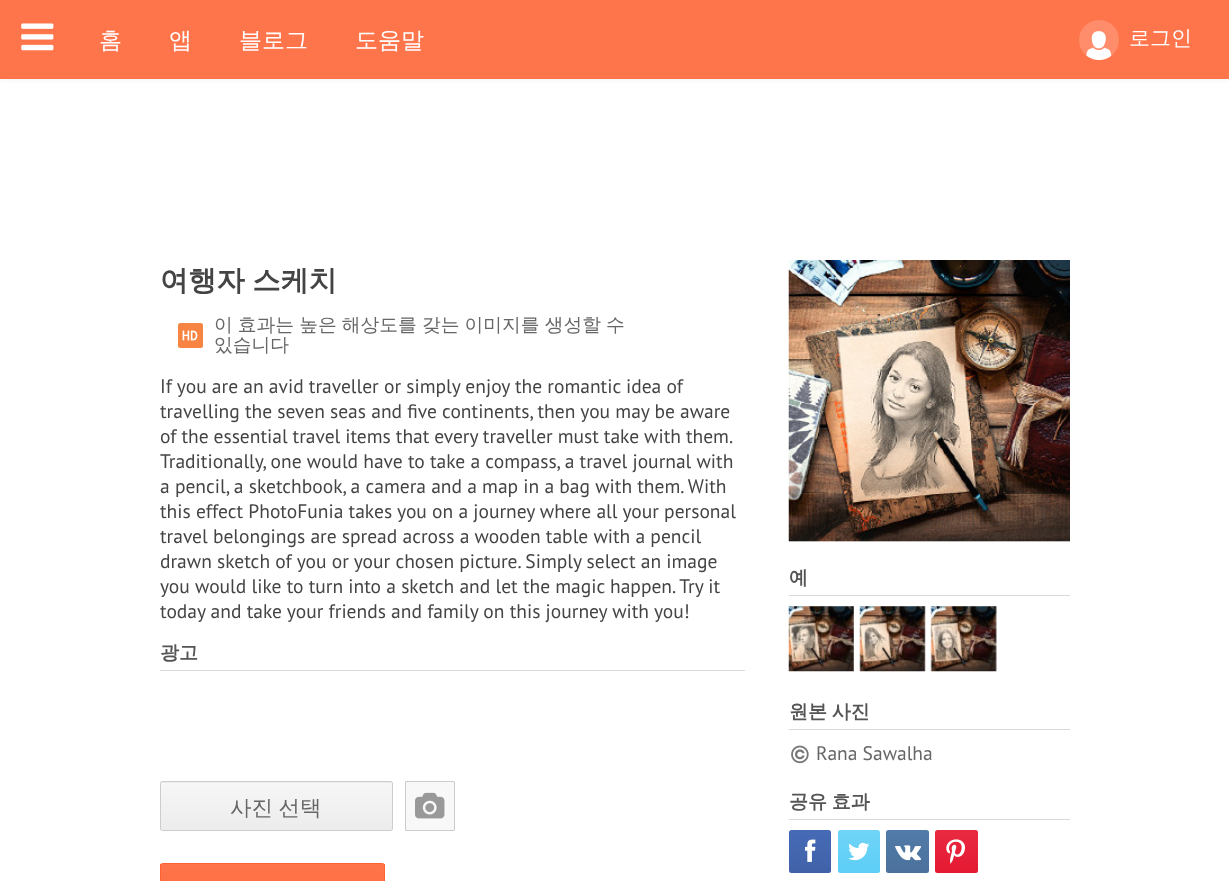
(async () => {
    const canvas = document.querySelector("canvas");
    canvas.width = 1229;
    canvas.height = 881;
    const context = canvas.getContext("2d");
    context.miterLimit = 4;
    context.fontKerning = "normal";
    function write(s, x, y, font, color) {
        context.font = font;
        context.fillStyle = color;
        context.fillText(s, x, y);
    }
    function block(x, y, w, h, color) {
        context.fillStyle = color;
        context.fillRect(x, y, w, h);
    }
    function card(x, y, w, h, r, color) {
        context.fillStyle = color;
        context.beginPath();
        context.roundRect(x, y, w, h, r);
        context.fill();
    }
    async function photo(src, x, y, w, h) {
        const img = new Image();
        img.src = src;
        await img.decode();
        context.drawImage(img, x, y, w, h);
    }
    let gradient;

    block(0, 0, 1229, 881, "rgb(255, 255, 255)");
    context.fillStyle = "rgba(0, 0, 0, 0.08)";
    context.filter = "blur(2.5px)";
    context.beginPath();
    context.rect(0, 0, 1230, 79);
    context.fill();
    context.filter = "none";
    block(0, 0, 1229, 79, "rgb(255, 117, 75)");
    await photo("media/1.png", 21, 23, 33, 28);
    write("홈", 99, 48, "500 23px WenQuanYi Zen Hei", "rgb(255, 255, 255)");
    write("앱", 169, 48, "500 23px WenQuanYi Zen Hei", "rgb(255, 255, 255)");
    write("블로그", 239, 48, "500 23px WenQuanYi Zen Hei", "rgb(255, 255, 255)");
    write("도움말", 355, 48, "500 23px WenQuanYi Zen Hei", "rgb(255, 255, 255)");
    context.fillStyle = "rgb(255, 140, 106)";
    context.beginPath();
    context.arc(1099, 40, 20, 0, Math.PI * 2);
    context.fill();
    await photo("media/2.png", 1086, 31, 26, 29);
    write("로그인", 1129, 45, "500 21px WenQuanYi Zen Hei", "rgb(255, 255, 255)");
    context.wordSpacing = "-1px";
    write("여행자 스케치", 160, 290, "bold 28.25px WenQuanYi Zen Hei", "rgb(68, 68, 68)");
    card(178, 323, 25, 25, 2.5, "rgb(247, 132, 66)");
    await photo("media/3.png", 182, 330, 16, 11);
    context.wordSpacing = "-0.5px";
    write("이 효과는 높은 해상도를 갖는 이미지를 생성할 수", 214, 331, "500 18.75px WenQuanYi Zen Hei", "rgb(102, 102, 102)");
    context.wordSpacing = "0px";
    write("있습니다", 214, 351, "500 18.75px WenQuanYi Zen Hei", "rgb(102, 102, 102)");
    write("If you are an avid traveller or simply enjoy the romantic idea of", 160, 393, "19.5px PT Sans", "rgb(68, 68, 68)");
    write("travelling the seven seas and five continents, then you may be aware", 160, 418, "19.5px PT Sans", "rgb(68, 68, 68)");
    context.wordSpacing = "-0.25px";
    write("of the essential travel items that every traveller must take with them.", 160, 443, "19.5px PT Sans", "rgb(68, 68, 68)");
    context.wordSpacing = "0px";
    write("Traditionally, one would have to take a compass, a travel journal with", 160, 468, "19.5px PT Sans", "rgb(68, 68, 68)");
    write("a pencil, a sketchbook, a camera and a map in a bag with them. With", 160, 493, "19.5px PT Sans", "rgb(68, 68, 68)");
    write("this effect PhotoFunia takes you on a journey where all your personal", 160, 518, "19.5px PT Sans", "rgb(68, 68, 68)");
    write("travel belongings are spread across a wooden table with a pencil", 160, 543, "19.5px PT Sans", "rgb(68, 68, 68)");
    write("drawn sketch of you or your chosen picture. Simply select an image", 160, 568, "19.5px PT Sans", "rgb(68, 68, 68)");
    write("you would like to turn into a sketch and let the magic happen. Try it", 160, 593, "19.5px PT Sans", "rgb(68, 68, 68)");
    write("today and take your friends and family on this journey with you!", 160, 618, "19.5px PT Sans", "rgb(68, 68, 68)");
    block(160, 670, 585, 1, "rgb(218, 218, 218)");
    write("광고", 160, 659, "bold 19px WenQuanYi Zen Hei", "rgb(85, 85, 85)");
    context.save();
    context.beginPath();
    context.roundRect(160, 781, 233, 50, 2.5);
    context.clip();
    gradient = context.createLinearGradient(161, 783, 161, 735);
    gradient.addColorStop(0, "rgb(236, 236, 236)");
    gradient.addColorStop(1, "rgb(246, 246, 246)");
    context.fillStyle = gradient;
    context.fillRect(160, 781, 233, 2);
    context.restore();
    gradient = context.createLinearGradient(161, 830, 161, 783);
    gradient.addColorStop(0, "rgb(236, 236, 236)");
    gradient.addColorStop(1, "rgb(246, 246, 246)");
    context.fillStyle = gradient;
    context.fillRect(160, 783, 233, 47);
    context.beginPath();
    context.roundRect(160.5, 781.5, 232, 49, 2);
    context.strokeStyle = "rgb(204, 204, 204)";
    context.stroke();
    context.wordSpacing = "-1px";
    write("사진 선택", 230, 815, "500 21.5px WenQuanYi Zen Hei", "rgb(102, 102, 102)");
    context.fillStyle = "rgb(248, 248, 248)";
    context.beginPath();
    context.roundRect(405.5, 781.5, 49, 49, 0.5);
    context.fill();
    context.stroke();
    await photo("media/4.png", 415, 792, 30, 27);
    gradient = context.createLinearGradient(161, 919, 161, 864);
    gradient.addColorStop(0, "rgb(255, 101, 55)");
    gradient.addColorStop(1, "rgb(255, 117, 75)");
    context.fillStyle = gradient;
    context.fillRect(160, 864, 225, 17);
    context.beginPath();
    context.roundRect(160.5, 863.5, 224, 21, 2);
    context.strokeStyle = "rgb(255, 97, 49)";
    context.stroke();
    await photo("media/5.png", 788, 260, 282, 282);
    block(789, 595, 281, 1, "rgb(218, 218, 218)");
    context.wordSpacing = "0px";
    write("예", 789, 584, "bold 19px WenQuanYi Zen Hei", "rgb(85, 85, 85)");
    block(789, 606, 65, 65, "rgb(238, 238, 238)");
    await photo("media/6.png", 788, 606, 66, 66);
    block(860, 606, 65, 65, "rgb(238, 238, 238)");
    await photo("media/7.png", 859, 606, 67, 66);
    block(931, 606, 65, 65, "rgb(238, 238, 238)");
    await photo("media/8.png", 930, 606, 67, 66);
    block(789, 729, 281, 1, "rgb(218, 218, 218)");
    context.wordSpacing = "-1px";
    write("원본 사진", 789, 718, "bold 19px WenQuanYi Zen Hei", "rgb(85, 85, 85)");
    await photo("media/9.png", 791, 745, 18, 19);
    context.wordSpacing = "0px";
    write("Rana Sawalha", 816, 760, "19.5px PT Sans", "rgb(102, 102, 102)");
    block(789, 819, 281, 1, "rgb(218, 218, 218)");
    context.wordSpacing = "-1px";
    write("공유 효과", 789, 808, "bold 19px WenQuanYi Zen Hei", "rgb(85, 85, 85)");
    gradient = context.createLinearGradient(789, 873, 789, 830);
    gradient.addColorStop(0, "rgb(65, 98, 168)");
    gradient.addColorStop(1, "rgb(70, 106, 182)");
    context.fillStyle = gradient;
    context.beginPath();
    context.roundRect(789, 830, 42, 43, 2.5);
    context.fill();
    await photo("media/10.png", 805, 839, 11, 23);
    gradient = context.createLinearGradient(838, 873, 838, 830);
    gradient.addColorStop(0, "rgb(92, 206, 246)");
    gradient.addColorStop(1, "rgb(112, 212, 247)");
    context.fillStyle = gradient;
    context.beginPath();
    context.roundRect(838, 830, 42, 43, 2.5);
    context.fill();
    await photo("media/11.png", 848, 842, 22, 19);
    gradient = context.createLinearGradient(886, 873, 886, 830);
    gradient.addColorStop(0, "rgb(75, 113, 155)");
    gradient.addColorStop(1, "rgb(81, 123, 169)");
    context.fillStyle = gradient;
    context.beginPath();
    context.roundRect(886, 830, 43, 43, 2.5);
    context.fill();
    await photo("media/12.png", 895, 845, 26, 16);
    gradient = context.createLinearGradient(935, 873, 935, 830);
    gradient.addColorStop(0, "rgb(228, 25, 50)");
    gradient.addColorStop(1, "rgb(232, 42, 65)");
    context.fillStyle = gradient;
    context.beginPath();
    context.roundRect(935, 830, 43, 43, 2.5);
    context.fill();
    await photo("media/13.png", 946, 839, 19, 25);
})();
